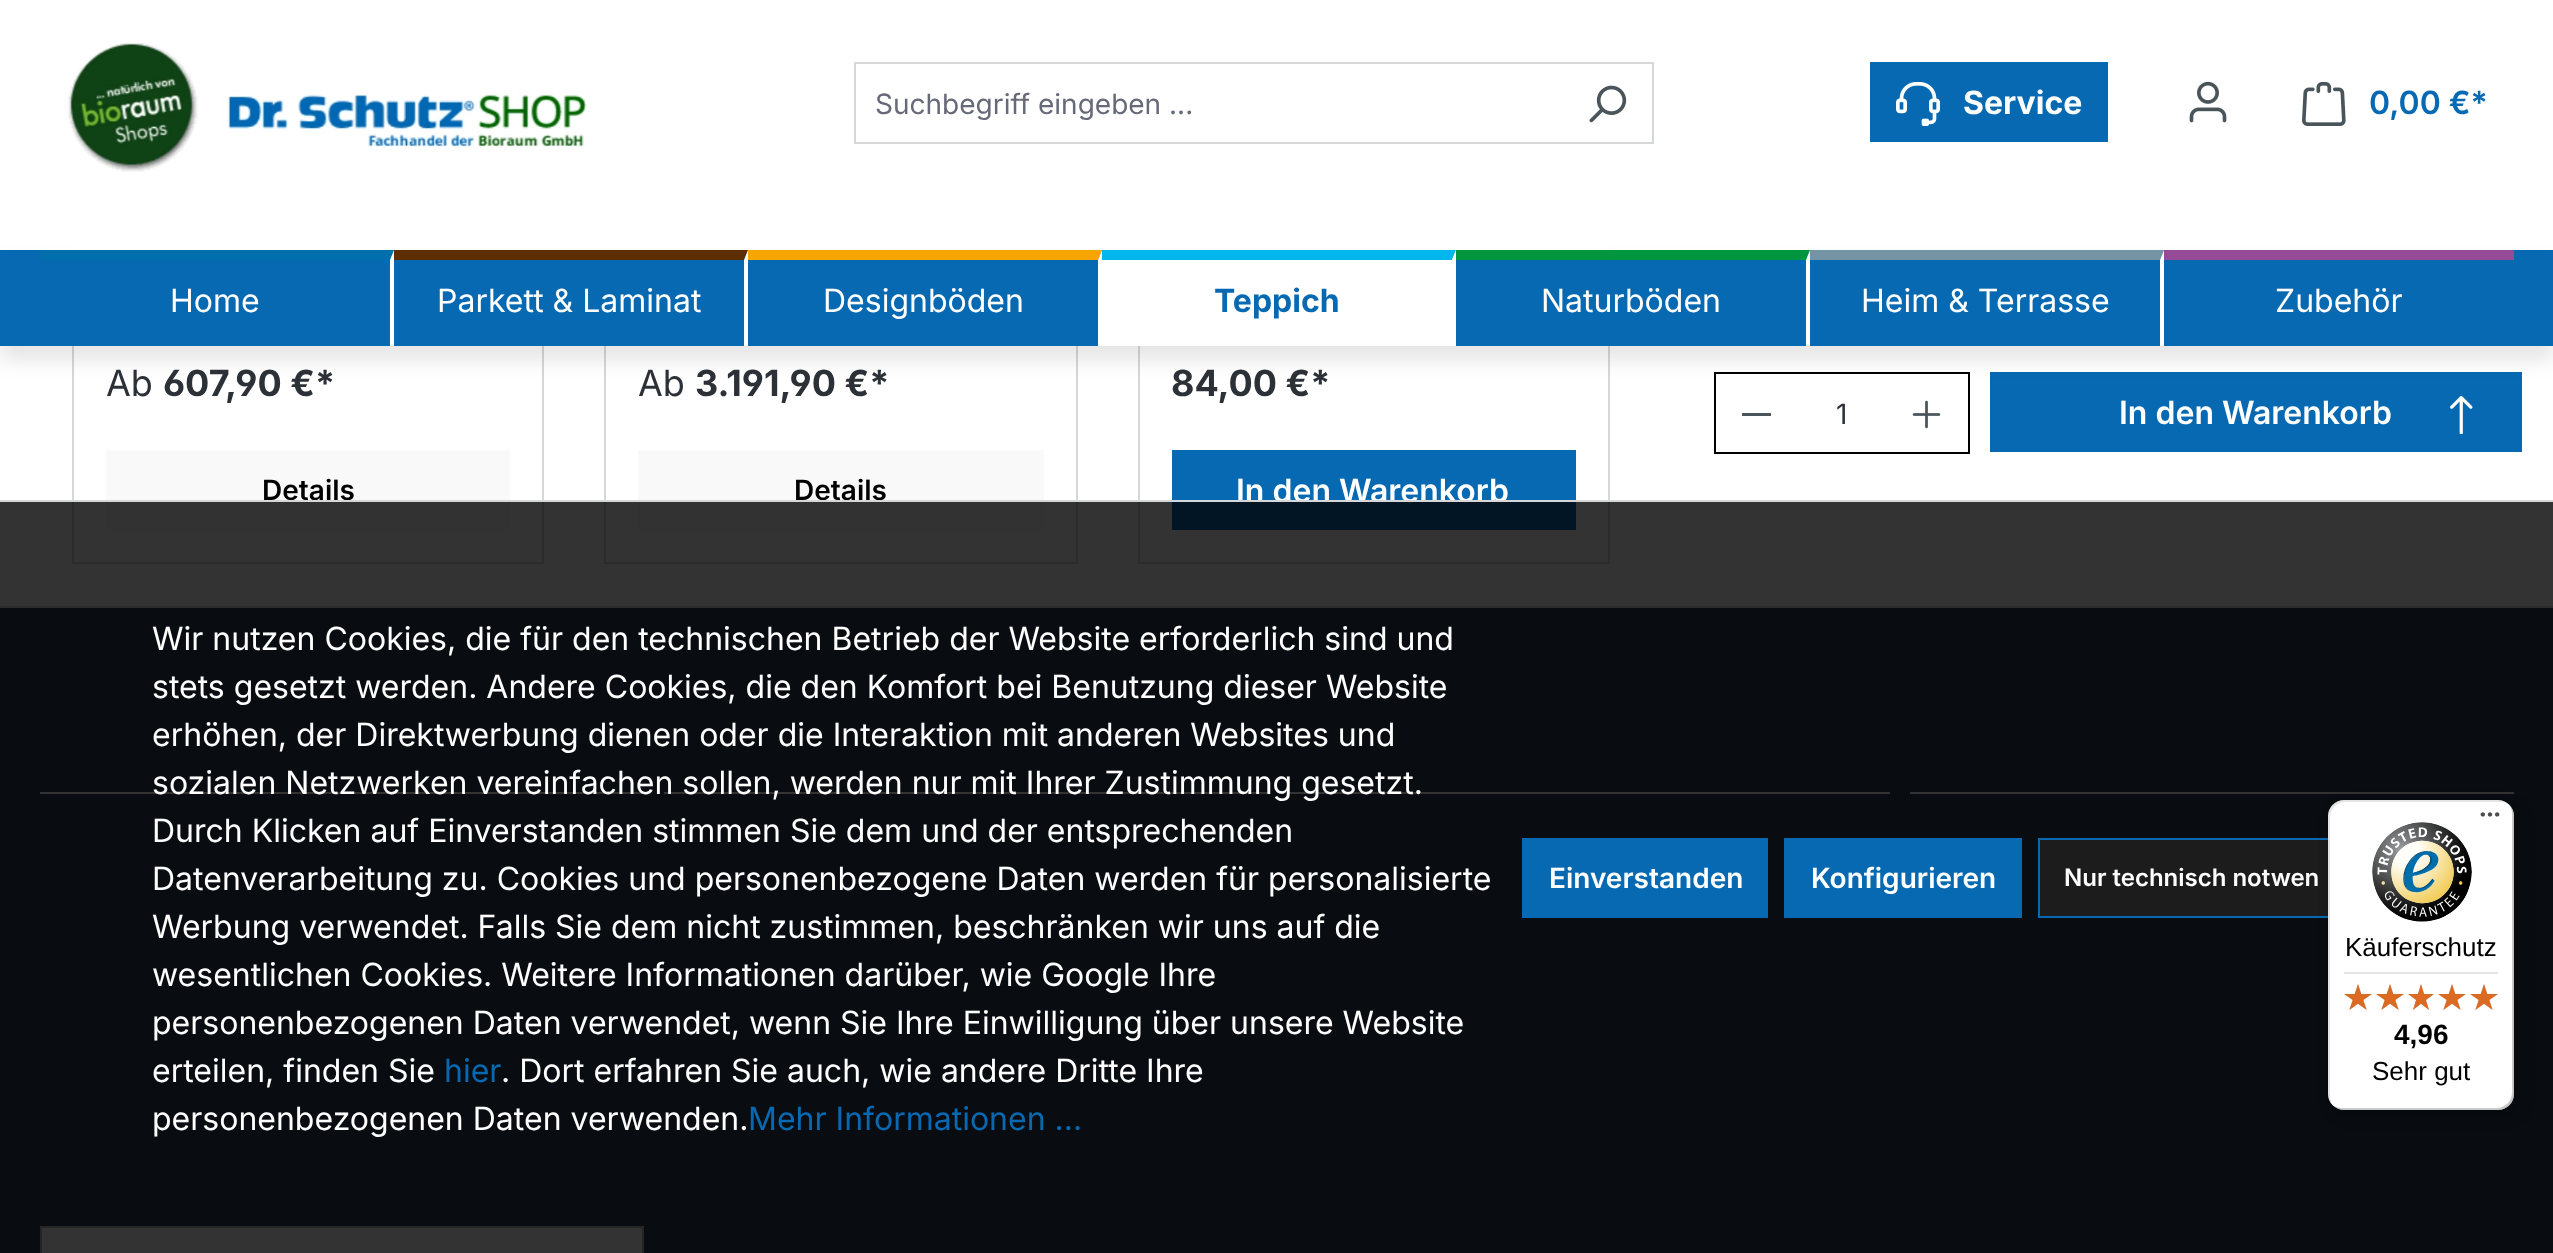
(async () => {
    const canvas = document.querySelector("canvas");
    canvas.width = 2553;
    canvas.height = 1253;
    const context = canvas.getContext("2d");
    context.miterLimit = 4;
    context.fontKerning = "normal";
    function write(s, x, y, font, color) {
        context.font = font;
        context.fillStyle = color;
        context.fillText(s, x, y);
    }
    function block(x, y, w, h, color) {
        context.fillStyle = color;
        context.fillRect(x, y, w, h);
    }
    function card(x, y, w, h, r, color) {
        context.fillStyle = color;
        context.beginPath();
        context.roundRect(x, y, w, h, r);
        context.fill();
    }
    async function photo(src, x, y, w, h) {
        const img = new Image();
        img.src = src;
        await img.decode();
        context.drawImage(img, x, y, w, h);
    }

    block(0, 0, 2553, 1253, "rgb(255, 255, 255)");
    context.strokeStyle = "rgb(213, 215, 217)";
    context.lineWidth = 2;
    context.strokeRect(73, -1, 470, 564);
    context.strokeRect(605, -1, 472, 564);
    context.strokeRect(1139, -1, 470, 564);
    context.strokeStyle = "rgb(0, 0, 0)";
    context.strokeRect(1715, 373, 254, 80);
    block(1990, 372, 532, 80, "rgb(7, 105, 178)");
    context.fillStyle = "rgba(0, 0, 0, 0.1)";
    context.filter = "blur(10px)";
    context.beginPath();
    context.rect(0, 264, 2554, 96);
    context.fill();
    context.filter = "none";
    block(72, 0, 1538, 250, "rgb(255, 255, 255)");
    await photo("media/1.png", 68, 42, 519, 130);
    block(854, 62, 800, 2, "rgb(213, 215, 217)");
    block(854, 142, 708, 2, "rgb(213, 215, 217)");
    block(854, 62, 2, 82, "rgb(213, 215, 217)");
    write("Suchbegriff eingeben ...", 875, 114, "28px Inter", "rgb(102, 105, 119)");
    block(1652, 62, 2, 82, "rgb(213, 215, 217)");
    block(1560, 142, 94, 2, "rgb(213, 215, 217)");
    await photo("media/2.png", 1589, 85, 38, 38);
    block(1870, 62, 238, 80, "rgb(7, 105, 178)");
    await photo("media/3.png", 1896, 82, 44, 44);
    write("Service", 1963, 114, "bold 32px Inter", "rgb(255, 255, 255)");
    await photo("media/4.png", 2189, 81, 38, 42);
    await photo("media/5.png", 2302, 82, 44, 44);
    write("0,00 €*", 2369, 114, "600 32px Inter", "rgb(7, 105, 178)");
    block(0, 250, 2553, 96, "rgb(7, 105, 178)");
    context.fillStyle = "rgb(0, 111, 172)";
    context.beginPath();
    context.moveTo(40, 250);
    context.lineTo(394, 250);
    context.lineTo(390, 260);
    context.lineTo(40, 260);
    context.closePath();
    context.fill();
    context.fillStyle = "rgb(255, 255, 255)";
    context.beginPath();
    context.moveTo(394, 250);
    context.lineTo(394, 346);
    context.lineTo(390, 346);
    context.lineTo(390, 260);
    context.closePath();
    context.fill();
    write("Home", 170, 312, "32px Inter", "rgb(255, 255, 255)");
    context.fillStyle = "rgb(93, 46, 0)";
    context.beginPath();
    context.moveTo(394, 250);
    context.lineTo(748, 250);
    context.lineTo(744, 260);
    context.lineTo(394, 260);
    context.closePath();
    context.fill();
    context.fillStyle = "rgb(255, 255, 255)";
    context.beginPath();
    context.moveTo(748, 250);
    context.lineTo(748, 346);
    context.lineTo(744, 346);
    context.lineTo(744, 260);
    context.closePath();
    context.fill();
    write("Parkett & Laminat", 437, 312, "32px Inter", "rgb(255, 255, 255)");
    context.fillStyle = "rgb(247, 165, 0)";
    context.beginPath();
    context.moveTo(748, 250);
    context.lineTo(1102, 250);
    context.lineTo(1098, 260);
    context.lineTo(748, 260);
    context.closePath();
    context.fill();
    context.fillStyle = "rgb(255, 255, 255)";
    context.beginPath();
    context.moveTo(1102, 250);
    context.lineTo(1102, 346);
    context.lineTo(1098, 346);
    context.lineTo(1098, 260);
    context.closePath();
    context.fill();
    write("Designböden", 823, 312, "32px Inter", "rgb(255, 255, 255)");
    block(1102, 250, 354, 96, "rgb(255, 255, 255)");
    context.fillStyle = "rgb(0, 182, 237)";
    context.beginPath();
    context.moveTo(1102, 250);
    context.lineTo(1456, 250);
    context.lineTo(1452, 260);
    context.lineTo(1102, 260);
    context.closePath();
    context.fill();
    context.fillStyle = "rgb(255, 255, 255)";
    context.beginPath();
    context.moveTo(1456, 250);
    context.lineTo(1456, 346);
    context.lineTo(1452, 346);
    context.lineTo(1452, 260);
    context.closePath();
    context.fill();
    write("Teppich", 1214, 312, "bold 32px Inter", "rgb(7, 105, 178)");
    context.fillStyle = "rgb(0, 150, 64)";
    context.beginPath();
    context.moveTo(1456, 250);
    context.lineTo(1810, 250);
    context.lineTo(1806, 260);
    context.lineTo(1456, 260);
    context.closePath();
    context.fill();
    context.fillStyle = "rgb(255, 255, 255)";
    context.beginPath();
    context.moveTo(1810, 250);
    context.lineTo(1810, 346);
    context.lineTo(1806, 346);
    context.lineTo(1806, 260);
    context.closePath();
    context.fill();
    write("Naturböden", 1541, 312, "32px Inter", "rgb(255, 255, 255)");
    context.fillStyle = "rgb(116, 147, 163)";
    context.beginPath();
    context.moveTo(1810, 250);
    context.lineTo(2164, 250);
    context.lineTo(2160, 260);
    context.lineTo(1810, 260);
    context.closePath();
    context.fill();
    context.fillStyle = "rgb(255, 255, 255)";
    context.beginPath();
    context.moveTo(2164, 250);
    context.lineTo(2164, 346);
    context.lineTo(2160, 346);
    context.lineTo(2160, 260);
    context.closePath();
    context.fill();
    write("Heim & Terrasse", 1861, 312, "32px Inter", "rgb(255, 255, 255)");
    block(2164, 250, 350, 10, "rgb(149, 75, 151)");
    write("Zubehör", 2275, 312, "32px Inter", "rgb(255, 255, 255)");
    write("Ab", 106, 396, "36px Inter", "rgb(43, 49, 54)");
    write("607,90 €*", 163, 396, "bold 36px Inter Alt", "rgb(43, 49, 54)");
    block(106, 450, 404, 80, "rgb(249, 249, 249)");
    write("Details", 262, 500, "600 28px Inter", "rgb(0, 0, 0)");
    write("Ab", 638, 396, "36px Inter", "rgb(43, 49, 54)");
    write("3.191,90 €*", 695, 396, "bold 36px Inter Alt", "rgb(43, 49, 54)");
    block(638, 450, 406, 80, "rgb(249, 249, 249)");
    write("Details", 794, 500, "600 28px Inter", "rgb(0, 0, 0)");
    write("84,00 €*", 1171, 396, "bold 36px Inter", "rgb(43, 49, 54)");
    block(1172, 450, 404, 80, "rgb(7, 105, 178)");
    write("In den Warenkorb", 1236, 502, "600 32px Inter", "rgb(255, 255, 255)");
    block(1742, 413, 29, 3, "rgb(74, 84, 91)");
    write("1", 1836, 424, "28px Inter", "rgb(43, 49, 54)");
    await photo("media/6.png", 1912, 400, 29, 29);
    write("In den Warenkorb", 2119, 424, "600 32px Inter", "rgb(255, 255, 255)");
    await photo("media/7.png", 2450, 396, 23, 38);
    block(0, 608, 2553, 645, "rgb(47, 67, 86)");
    block(0, 606, 2553, 2, "rgb(213, 215, 217)");
    block(40, 792, 604, 2, "rgb(255, 255, 255)");
    context.beginPath();
    context.rect(41, 1227, 602, 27);
    context.fill();
    context.strokeStyle = "rgb(187, 187, 187)";
    context.stroke();
    block(664, 792, 604, 2, "rgb(255, 255, 255)");
    block(1288, 792, 602, 2, "rgb(255, 255, 255)");
    block(1910, 792, 604, 2, "rgb(255, 255, 255)");
    block(0, 502, 2553, 751, "rgba(0, 0, 0, 0.8)");
    block(0, 500, 2553, 2, "rgb(213, 215, 217)");
    write("Wir nutzen Cookies, die für den technischen Betrieb der Website erforderlich sind und", 152, 650, "32px Inter", "rgb(255, 255, 255)");
    write("stets gesetzt werden. Andere Cookies, die den Komfort bei Benutzung dieser Website", 152, 698, "32px Inter", "rgb(255, 255, 255)");
    write("erhöhen, der Direktwerbung dienen oder die Interaktion mit anderen Websites und", 152, 746, "32px Inter", "rgb(255, 255, 255)");
    write("sozialen Netzwerken vereinfachen sollen, werden nur mit Ihrer Zustimmung gesetzt.", 152, 794, "32px Inter", "rgb(255, 255, 255)");
    write("Durch Klicken auf Einverstanden stimmen Sie dem und der entsprechenden", 152, 842, "32px Inter", "rgb(255, 255, 255)");
    write("Datenverarbeitung zu. Cookies und personenbezogene Daten werden für personalisierte", 152, 890, "32px Inter", "rgb(255, 255, 255)");
    write("Werbung verwendet. Falls Sie dem nicht zustimmen, beschränken wir uns auf die", 152, 938, "32px Inter", "rgb(255, 255, 255)");
    write("wesentlichen Cookies. Weitere Informationen darüber, wie Google Ihre", 152, 986, "32px Inter", "rgb(255, 255, 255)");
    write("personenbezogenen Daten verwendet, wenn Sie Ihre Einwilligung über unsere Website", 152, 1034, "32px Inter", "rgb(255, 255, 255)");
    write("erteilen, finden Sie", 152, 1082, "32px Inter", "rgb(255, 255, 255)");
    write("hier", 444, 1082, "32px Inter", "rgb(7, 105, 178)");
    write(". Dort erfahren Sie auch, wie andere Dritte Ihre", 501, 1082, "32px Inter", "rgb(255, 255, 255)");
    write("personenbezogenen Daten verwenden.", 152, 1130, "32px Inter", "rgb(255, 255, 255)");
    write("Mehr Informationen ...", 748, 1130, "32px Inter", "rgb(7, 105, 178)");
    block(1522, 838, 246, 80, "rgb(7, 105, 178)");
    write("Einverstanden", 1549, 888, "600 28px Inter", "rgb(255, 255, 255)");
    block(1784, 838, 238, 80, "rgb(7, 105, 178)");
    write("Konfigurieren", 1811, 888, "600 28px Inter", "rgb(255, 255, 255)");
    block(2040, 840, 288, 76, "rgb(28, 28, 28)");
    context.strokeStyle = "rgb(7, 105, 178)";
    context.strokeRect(2039, 839, 356, 78);
    write("Nur technisch notwen", 2064, 886, "600 24px Inter", "rgb(255, 255, 255)");
    context.fillStyle = "rgba(0, 0, 0, 0.15)";
    context.filter = "blur(8px)";
    context.beginPath();
    context.roundRect(2334, 806, 186, 310, 16);
    context.fill();
    context.filter = "none";
    context.filter = "blur(2px)";
    context.beginPath();
    context.roundRect(2330, 802, 186, 310, 16);
    context.fill();
    context.filter = "none";
    card(2328, 800, 186, 310, 16, "rgb(255, 255, 255)");
    context.fillStyle = "rgba(0, 0, 0, 0.1)";
    context.beginPath();
    context.moveTo(2346, 802);
    context.lineTo(2500, 802);
    context.bezierCurveTo(2504, 802, 2507, 803, 2510, 805);
    context.bezierCurveTo(2507, 802, 2503, 800, 2498, 800);
    context.lineTo(2344, 800);
    context.bezierCurveTo(2335, 800, 2328, 807, 2328, 816);
    context.lineTo(2328, 1094);
    context.bezierCurveTo(2328, 1099, 2330, 1103, 2333, 1106);
    context.bezierCurveTo(2331, 1103, 2330, 1100, 2330, 1096);
    context.lineTo(2330, 818);
    context.bezierCurveTo(2330, 809, 2337, 802, 2346, 802);
    context.closePath();
    context.fill();
    context.fillStyle = "rgba(0, 0, 0, 0.2)";
    context.beginPath();
    context.moveTo(2332, 1105);
    context.bezierCurveTo(2335, 1108, 2339, 1110, 2344, 1110);
    context.lineTo(2498, 1110);
    context.bezierCurveTo(2507, 1110, 2514, 1103, 2514, 1094);
    context.lineTo(2514, 816);
    context.bezierCurveTo(2514, 811, 2512, 807, 2509, 804);
    context.bezierCurveTo(2511, 807, 2512, 810, 2512, 814);
    context.lineTo(2512, 1092);
    context.bezierCurveTo(2512, 1101, 2505, 1108, 2496, 1108);
    context.lineTo(2342, 1108);
    context.bezierCurveTo(2338, 1108, 2335, 1107, 2332, 1105);
    context.closePath();
    context.fill();
    context.fillStyle = "rgba(50, 50, 50, 0.2)";
    context.beginPath();
    context.moveTo(2333, 1105);
    context.bezierCurveTo(2336, 1108, 2340, 1110, 2344, 1110);
    context.lineTo(2498, 1110);
    context.bezierCurveTo(2507, 1110, 2514, 1103, 2514, 1094);
    context.lineTo(2514, 816);
    context.bezierCurveTo(2514, 812, 2512, 808, 2509, 805);
    context.bezierCurveTo(2512, 808, 2513, 811, 2513, 815);
    context.lineTo(2513, 1093);
    context.bezierCurveTo(2513, 1102, 2506, 1109, 2497, 1109);
    context.lineTo(2343, 1109);
    context.bezierCurveTo(2339, 1109, 2336, 1108, 2333, 1105);
    context.closePath();
    context.fill();
    context.fillStyle = "rgba(255, 255, 255, 0.3)";
    context.beginPath();
    context.moveTo(2333, 1105);
    context.bezierCurveTo(2336, 1108, 2340, 1110, 2344, 1110);
    context.lineTo(2498, 1110);
    context.bezierCurveTo(2507, 1110, 2514, 1103, 2514, 1094);
    context.lineTo(2514, 816);
    context.bezierCurveTo(2514, 812, 2512, 808, 2509, 805);
    context.bezierCurveTo(2512, 808, 2513, 811, 2513, 815);
    context.lineTo(2513, 1093);
    context.bezierCurveTo(2513, 1102, 2506, 1109, 2497, 1109);
    context.lineTo(2343, 1109);
    context.bezierCurveTo(2339, 1109, 2336, 1108, 2333, 1105);
    context.closePath();
    context.fill();
    await photo("media/8.png", 2480, 812, 20, 5);
    await photo("media/9.png", 2372, 822, 100, 100);
    write("Käuferschutz", 2345, 956, "26px Liberation Sans", "rgb(0, 0, 0)");
    block(2344, 972, 154, 2, "rgb(229, 229, 229)");
    await photo("media/10.png", 2344, 984, 28, 26);
    await photo("media/10.png", 2376, 984, 28, 26);
    await photo("media/11.png", 2408, 984, 26, 26);
    await photo("media/10.png", 2438, 984, 28, 26);
    await photo("media/10.png", 2470, 984, 28, 26);
    await photo("media/12.png", 2344, 984, 28, 26);
    await photo("media/12.png", 2376, 984, 28, 26);
    await photo("media/13.png", 2408, 984, 26, 26);
    await photo("media/12.png", 2438, 984, 28, 26);
    await photo("media/12.png", 2470, 984, 28, 26);
    write("4,96", 2394, 1044, "bold 28px Liberation Sans", "rgb(0, 0, 0)");
    write("Sehr gut", 2372, 1080, "26px Liberation Sans", "rgb(0, 0, 0)");
})();
